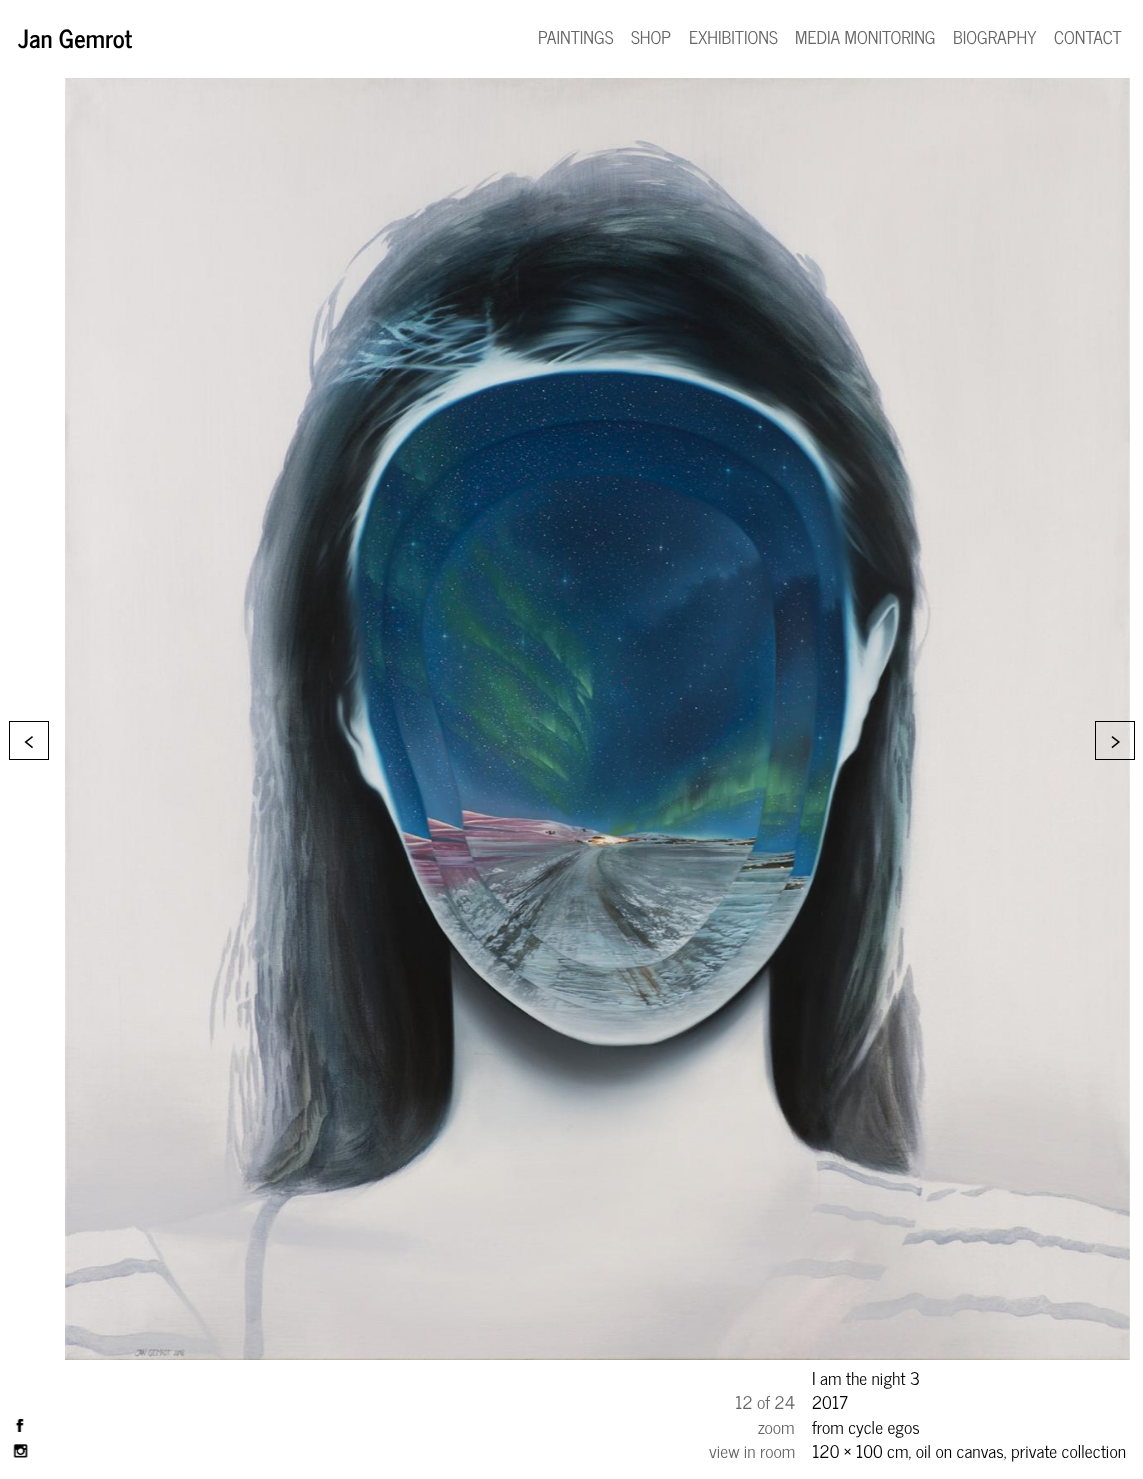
(async () => {
    const canvas = document.querySelector("canvas");
    canvas.width = 1143;
    canvas.height = 1479;
    const context = canvas.getContext("2d");
    context.miterLimit = 4;
    context.fontKerning = "normal";
    function write(s, x, y, font, color) {
        context.font = font;
        context.fillStyle = color;
        context.fillText(s, x, y);
    }
    function block(x, y, w, h, color) {
        context.fillStyle = color;
        context.fillRect(x, y, w, h);
    }
    async function photo(src, x, y, w, h) {
        const img = new Image();
        img.src = src;
        await img.decode();
        context.drawImage(img, x, y, w, h);
    }

    block(0, 0, 1143, 1479, "rgb(255, 255, 255)");
    write("Jan Gemrot", 18, 48, "bold 25px News Cycle", "rgb(0, 0, 0)");
    write("PAINTINGS", 538, 44, "17.5px News Cycle", "rgb(102, 102, 102)");
    write("SHOP", 631, 44, "17.5px News Cycle", "rgb(102, 102, 102)");
    write("EXHIBITIONS", 689, 44, "17.5px News Cycle", "rgb(102, 102, 102)");
    write("MEDIA MONITORING", 795, 44, "17.5px News Cycle", "rgb(102, 102, 102)");
    write("BIOGRAPHY", 953, 44, "17.5px News Cycle", "rgb(102, 102, 102)");
    write("CONTACT", 1054, 44, "17.5px News Cycle", "rgb(102, 102, 102)");
    await photo("media/1.png", 15, 1418, 9, 14);
    await photo("media/2.png", 13, 1444, 15, 14);
    await photo("media/3.png", 65, 78, 1065, 1282);
    context.strokeStyle = "rgb(0, 0, 0)";
    context.strokeRect(9.5, 721.5, 39, 38);
    write("<", 24, 749, "bold 19px News Cycle", "rgb(0, 0, 0)");
    context.strokeRect(1095.5, 721.5, 39, 38);
    write(">", 1111, 749, "bold 19px News Cycle", "rgb(0, 0, 0)");
    write("12 of 24", 735, 1409, "17.5px News Cycle", "rgb(102, 102, 102)");
    write("zoom", 758, 1434, "17.5px News Cycle", "rgb(102, 102, 102)");
    write("view in room", 709, 1458, "17.5px News Cycle", "rgb(102, 102, 102)");
    write("I am the night 3", 812, 1385, "17.5px News Cycle", "rgb(0, 0, 0)");
    write("2017", 812, 1409, "17.5px News Cycle", "rgb(0, 0, 0)");
    write("from cycle egos", 812, 1434, "17.5px News Cycle", "rgb(0, 0, 0)");
    write("120 × 100 cm, oil on canvas, private collection", 812, 1458, "17.5px News Cycle", "rgb(0, 0, 0)");
})();
